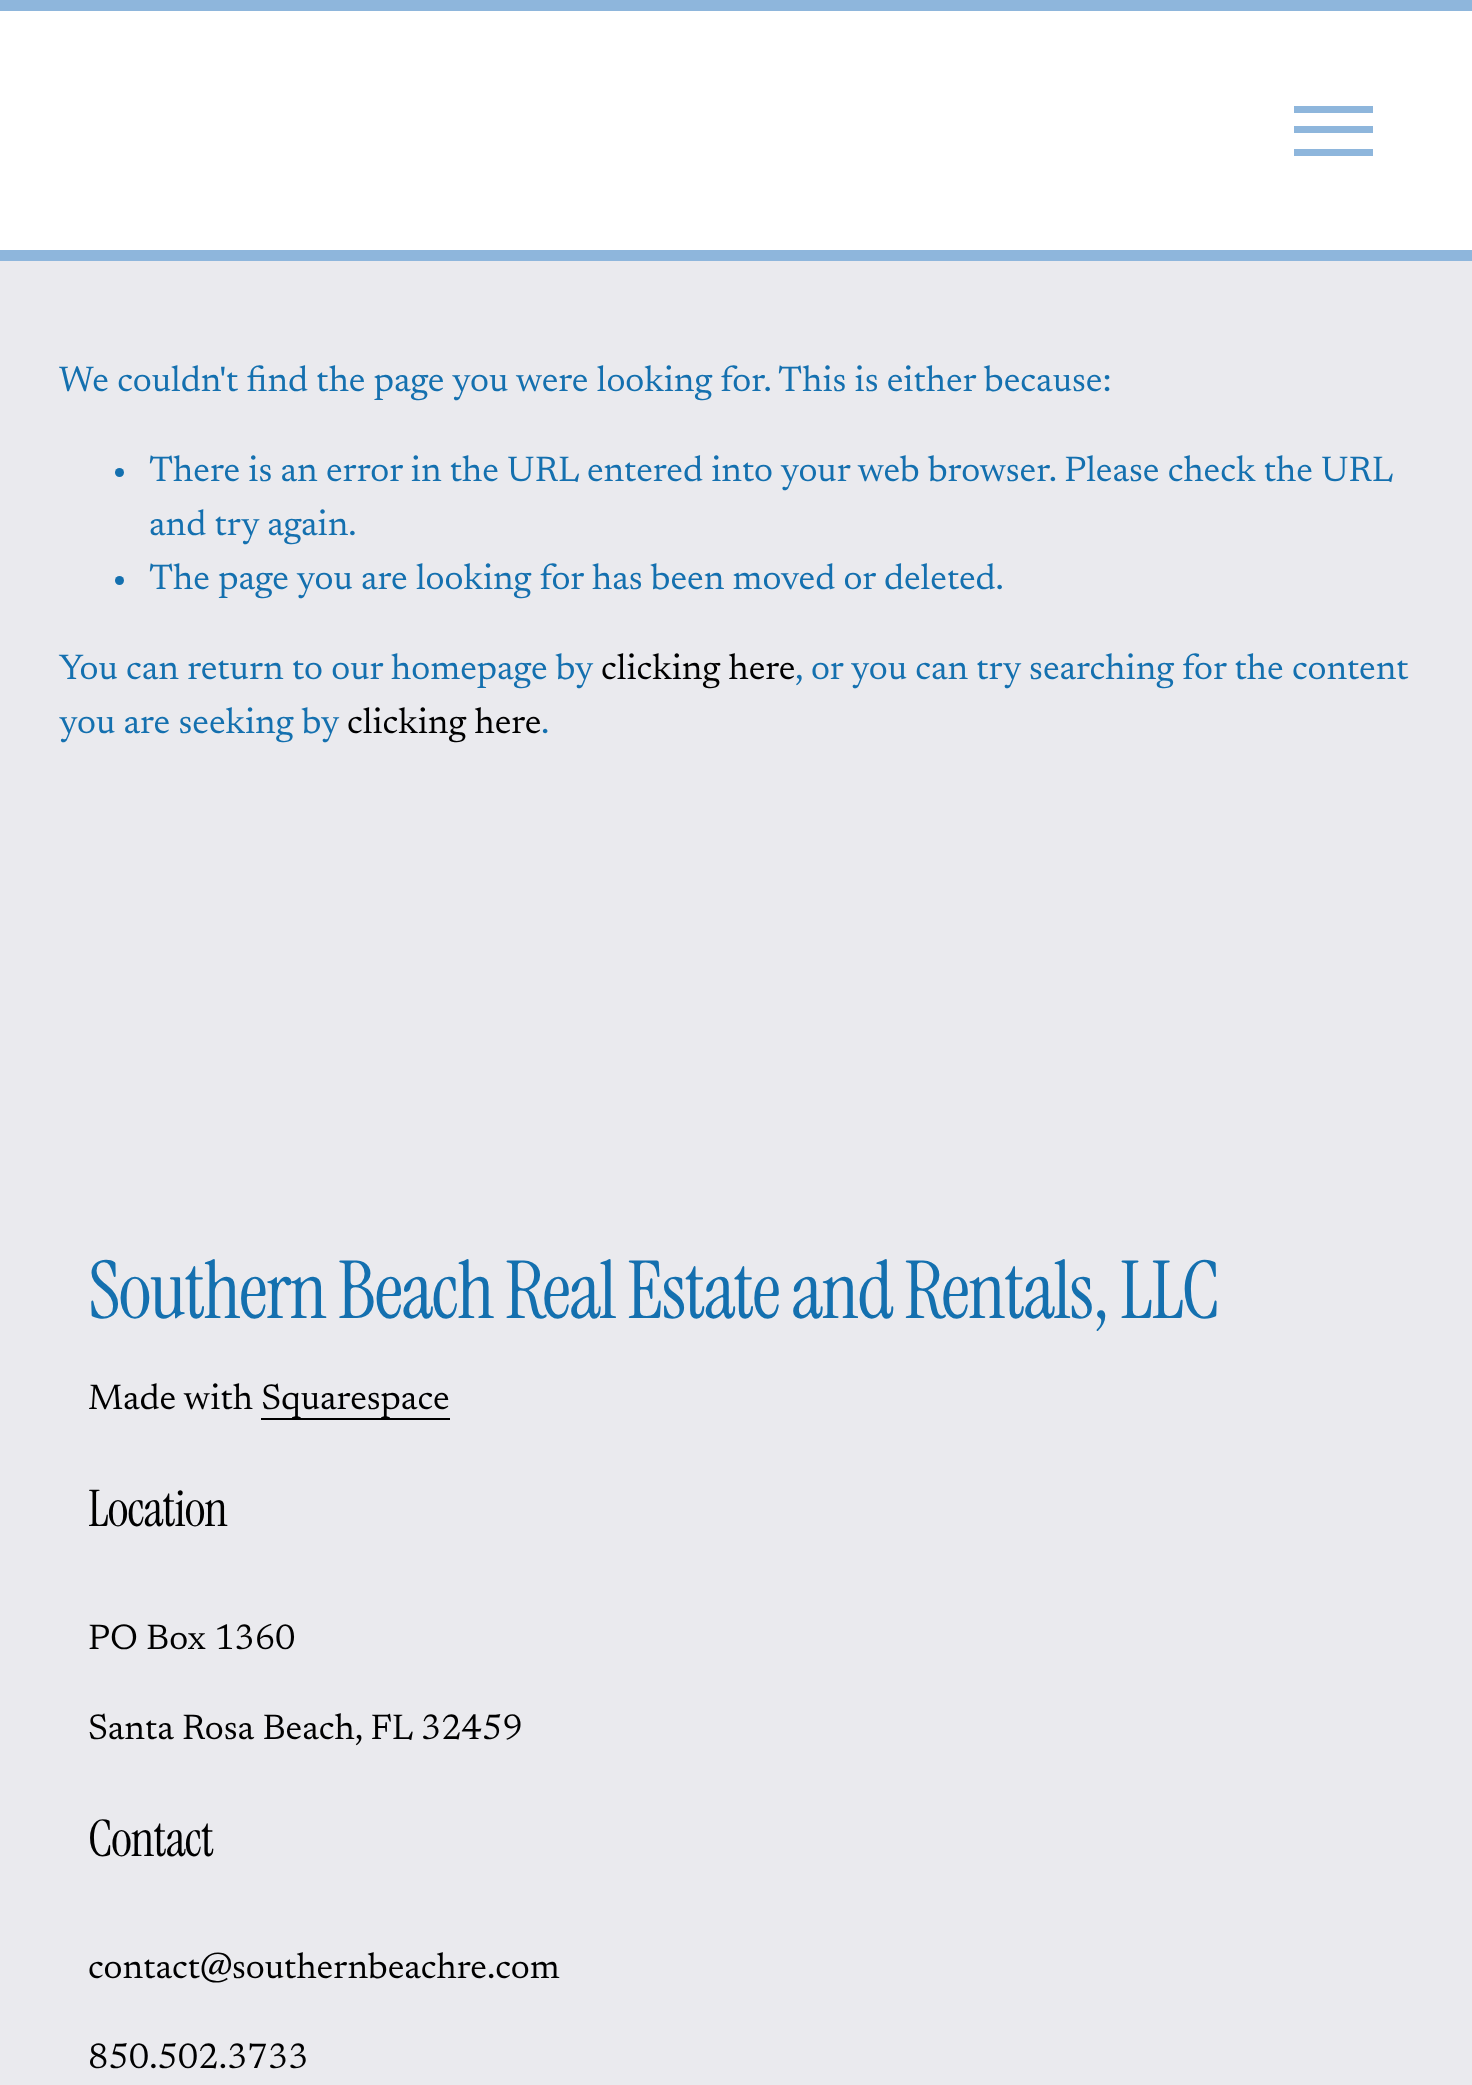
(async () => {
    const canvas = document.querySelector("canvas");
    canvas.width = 1472;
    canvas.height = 2085;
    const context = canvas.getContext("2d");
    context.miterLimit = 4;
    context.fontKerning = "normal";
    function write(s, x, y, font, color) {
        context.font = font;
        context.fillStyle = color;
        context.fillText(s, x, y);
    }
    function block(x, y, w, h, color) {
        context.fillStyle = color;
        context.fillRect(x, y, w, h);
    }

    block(0, 0, 1472, 2085, "rgb(234, 234, 238)");
    block(0, 0, 1472, 11, "rgb(142, 182, 220)");
    block(0, 250, 1472, 11, "rgb(142, 182, 220)");
    block(0, 11, 1472, 239, "rgb(255, 255, 255)");
    block(1294, 106, 79, 7, "rgb(142, 182, 220)");
    block(1294, 126, 79, 7, "rgb(142, 182, 220)");
    block(1294, 149, 79, 7, "rgb(142, 182, 220)");
    write("We couldn't find the page you were looking for. This is either because:", 59, 391, "36px Newsreader", "rgb(20, 112, 175)");
    context.beginPath();
    context.arc(119.5, 472.5, 4.5, 0, Math.PI * 2);
    context.fill();
    write("There is an error in the URL entered into your web browser. Please check the URL", 149, 481, "36px Newsreader", "rgb(20, 112, 175)");
    write("and try again.", 149, 535, "36px Newsreader", "rgb(20, 112, 175)");
    context.beginPath();
    context.arc(119.5, 580.5, 4.5, 0, Math.PI * 2);
    context.fill();
    write("The page you are looking for has been moved or deleted.", 149, 589, "36px Newsreader", "rgb(20, 112, 175)");
    write("You can return to our homepage by", 59, 679, "36px Newsreader", "rgb(20, 112, 175)");
    write("clicking here", 601, 679, "36px Newsreader", "rgb(0, 0, 0)");
    write(", or you can try searching for the content", 795, 679, "36px Newsreader", "rgb(20, 112, 175)");
    write("you are seeking by", 59, 733, "36px Newsreader", "rgb(20, 112, 175)");
    write("clicking here", 347, 733, "36px Newsreader", "rgb(0, 0, 0)");
    write(".", 541, 733, "36px Newsreader", "rgb(20, 112, 175)");
    context.letterSpacing = "-1.6px";
    write("Southern Beach Real Estate and Rentals, LLC", 88, 1318, "79.75px Instrument Serif", "rgb(20, 112, 175)");
    context.letterSpacing = "0px";
    write("Made with Squarespace", 88, 1409, "36px Newsreader", "rgb(0, 0, 0)");
    block(261, 1418, 189, 2, "rgb(0, 0, 0)");
    context.letterSpacing = "-1px";
    write("Location", 88, 1526, "50.5px Instrument Serif", "rgb(0, 0, 0)");
    context.letterSpacing = "0px";
    write("PO Box 1360", 88, 1649, "36px Newsreader", "rgb(0, 0, 0)");
    write("Santa Rosa Beach, FL 32459", 88, 1739, "36px Newsreader", "rgb(0, 0, 0)");
    context.letterSpacing = "-1px";
    write("Contact", 88, 1856, "50.5px Instrument Serif", "rgb(0, 0, 0)");
    context.letterSpacing = "0px";
    write("contact@southernbeachre.com", 88, 1978, "36px Newsreader", "rgb(0, 0, 0)");
    write("850.502.3733", 88, 2068, "36px Newsreader", "rgb(0, 0, 0)");
})();
